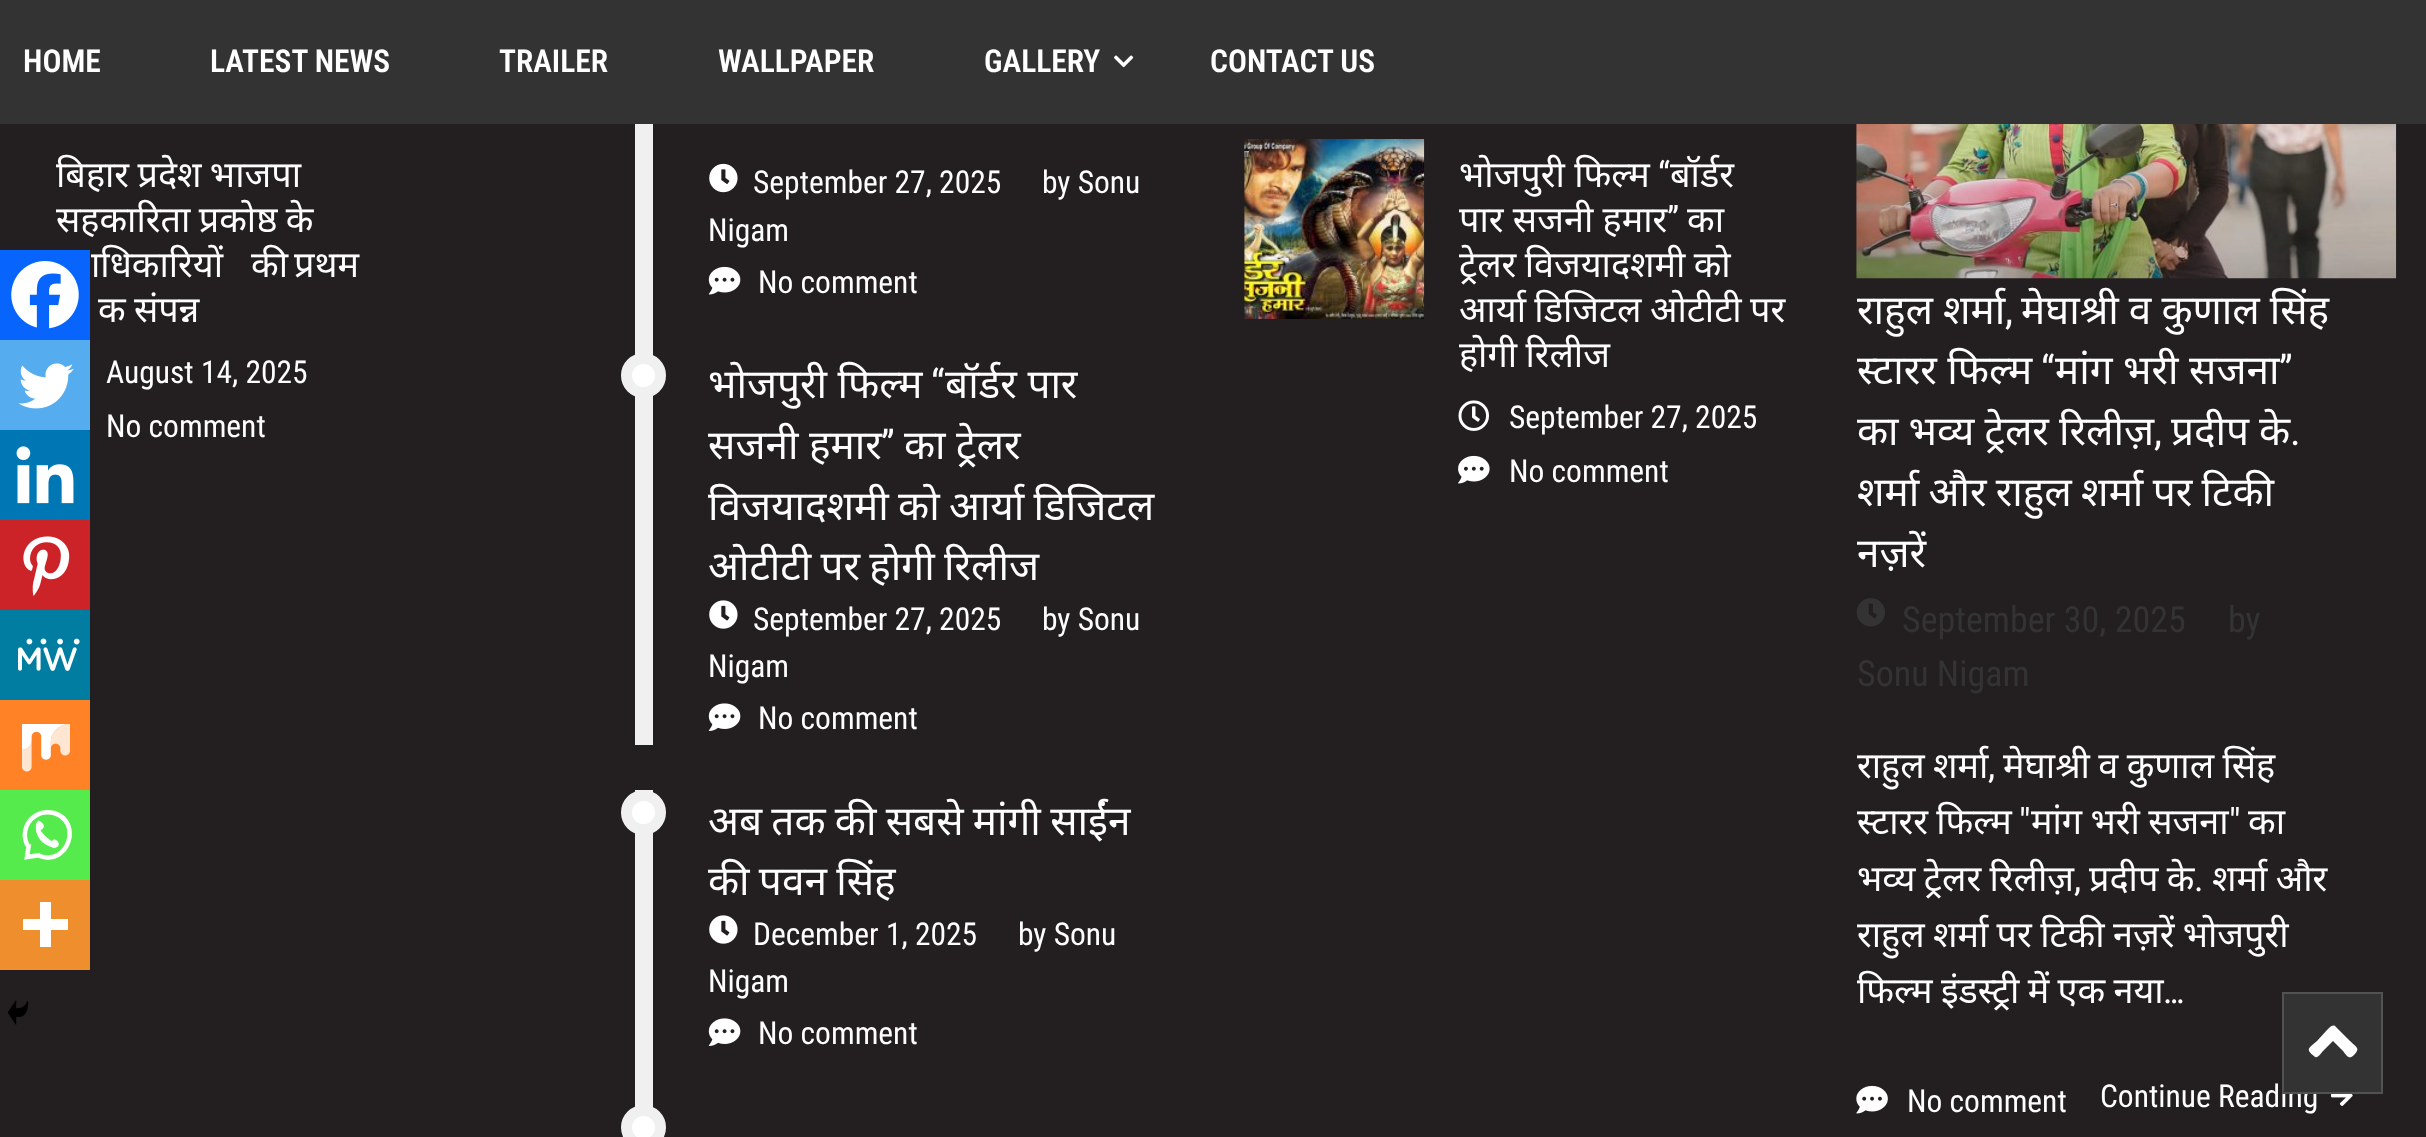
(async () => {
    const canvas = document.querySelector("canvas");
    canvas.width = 2426;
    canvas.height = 1137;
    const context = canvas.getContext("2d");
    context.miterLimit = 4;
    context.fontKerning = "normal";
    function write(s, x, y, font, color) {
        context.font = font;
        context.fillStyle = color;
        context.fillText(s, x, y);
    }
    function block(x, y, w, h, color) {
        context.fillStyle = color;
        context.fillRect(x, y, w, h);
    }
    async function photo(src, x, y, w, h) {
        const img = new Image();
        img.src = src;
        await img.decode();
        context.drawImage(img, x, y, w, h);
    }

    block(0, 0, 2426, 1137, "rgb(35, 31, 32)");
    block(0, 0, 2426, 124, "rgb(51, 51, 51)");
    write("HOME", 23, 72, "600 31.5px Roboto Condensed", "rgb(255, 255, 255)");
    write("LATEST NEWS", 210, 72, "600 31.5px Roboto Condensed", "rgb(255, 255, 255)");
    write("TRAILER", 499, 72, "600 31.5px Roboto Condensed", "rgb(255, 255, 255)");
    write("WALLPAPER", 718, 72, "600 31.5px Roboto Condensed", "rgb(255, 255, 255)");
    write("GALLERY", 984, 72, "600 31.5px Roboto Condensed", "rgb(255, 255, 255)");
    await photo("media/1.png", 1114, 55, 20, 13);
    write("CONTACT US", 1210, 72, "600 31.5px Roboto Condensed", "rgb(255, 255, 255)");
    block(0, 250, 90, 90, "rgb(7, 101, 254)");
    await photo("media/2.png", 11, 261, 68, 68);
    block(0, 340, 90, 90, "rgb(85, 172, 238)");
    await photo("media/3.png", 18, 363, 56, 46);
    block(0, 430, 90, 90, "rgb(0, 119, 181)");
    await photo("media/4.png", 16, 446, 58, 58);
    block(0, 520, 90, 90, "rgb(204, 35, 41)");
    await photo("media/5.png", 23, 536, 47, 60);
    block(0, 610, 90, 90, "rgb(0, 125, 161)");
    await photo("media/6.png", 18, 638, 62, 33);
    block(0, 700, 90, 90, "rgb(255, 130, 38)");
    await photo("media/7.png", 22, 724, 48, 48);
    block(0, 790, 90, 90, "rgb(85, 235, 76)");
    context.beginPath();
    context.moveTo(39.5, 856);
    context.bezierCurveTo(68, 866.5, 83, 822, 54, 813);
    context.bezierCurveTo(47.5, 811.5, 40.5, 812.5, 35, 816);
    context.bezierCurveTo(24.5, 823, 21.5, 837.5, 29, 847.5);
    context.moveTo(29, 844);
    context.lineTo(27, 857);
    context.lineTo(40.5, 855);
    context.strokeStyle = "rgb(255, 255, 255)";
    context.lineWidth = 4.5;
    context.stroke();
    context.fillStyle = "rgb(255, 255, 255)";
    context.beginPath();
    context.moveTo(36, 823.5);
    context.bezierCurveTo(34.5, 835.5, 40.5, 844, 54, 848);
    context.bezierCurveTo(65, 846, 54, 835, 52, 841.5);
    context.bezierCurveTo(46, 837, 42, 833, 40.5, 830);
    context.bezierCurveTo(49.5, 826, 38, 819, 38, 821);
    context.fill();
    block(0, 880, 90, 90, "rgb(238, 142, 45)");
    context.fillStyle = "rgb(255, 255, 255)";
    context.beginPath();
    context.moveTo(51, 919);
    context.lineTo(51, 902);
    context.lineTo(40, 902);
    context.lineTo(40, 919);
    context.lineTo(23, 919);
    context.lineTo(23, 930);
    context.lineTo(40, 930);
    context.lineTo(40, 947);
    context.lineTo(51, 947);
    context.lineTo(51, 930);
    context.lineTo(68, 930);
    context.lineTo(68, 919);
    context.closePath();
    context.fill("evenodd");
    await photo("media/8.png", 7, 1000, 22, 25);
    context.wordSpacing = "-1px";
    write("बिहार प्रदेश भाजपा", 56, 187, "36px Noto Sans", "rgb(255, 255, 255)");
    write("सहकारिता प्रकोष्ठ के", 56, 232, "36px Noto Sans", "rgb(255, 255, 255)");
    write("ाधिकारियों", 91, 277, "36px Noto Sans", "rgb(255, 255, 255)");
    write("की", 251, 277, "36px Noto Sans", "rgb(255, 255, 255)");
    write("प्रथम", 294, 277, "36px Noto Sans", "rgb(255, 255, 255)");
    write("क संपन्न", 98, 322, "36px Noto Sans", "rgb(255, 255, 255)");
    context.wordSpacing = "0px";
    write("August 14, 2025", 106, 383, "31.5px Roboto Condensed", "rgb(255, 255, 255)");
    write("No comment", 106, 437, "31.5px Roboto Condensed", "rgb(255, 255, 255)");
    block(635, 124, 18, 621, "rgb(240, 240, 240)");
    await photo("media/9.png", 709, 163, 29, 30);
    write("September 27, 2025", 753, 193, "31.5px Roboto Condensed", "rgb(255, 255, 255)");
    write("by Sonu", 1042, 193, "31.5px Roboto Condensed", "rgb(255, 255, 255)");
    write("Nigam", 708, 241, "31.5px Roboto Condensed", "rgb(255, 255, 255)");
    await photo("media/10.png", 708, 266, 33, 29);
    write("No comment", 758, 293, "31.5px Roboto Condensed", "rgb(255, 255, 255)");
    context.beginPath();
    context.arc(643.5, 375.5, 17, 0, Math.PI * 2);
    context.fill();
    context.strokeStyle = "rgb(240, 240, 240)";
    context.lineWidth = 11;
    context.stroke();
    write("भोजपुरी फिल्म", 708, 398, "40.5px Noto Sans", "rgb(255, 255, 255)");
    write("“", 931, 398, "40.5px Roboto Condensed", "rgb(255, 255, 255)");
    write("बॉर्डर पार", 945, 398, "40.5px Noto Sans", "rgb(255, 255, 255)");
    write("सजनी हमार", 708, 459, "40.5px Noto Sans", "rgb(255, 255, 255)");
    write("”", 881, 459, "40.5px Roboto Condensed", "rgb(255, 255, 255)");
    write("का ट्रेलर", 904, 459, "40.5px Noto Sans", "rgb(255, 255, 255)");
    context.wordSpacing = "-1.25px";
    write("विजयादशमी को आर्या डिजिटल", 708, 520, "40.5px Noto Sans", "rgb(255, 255, 255)");
    write("ओटीटी पर होगी रिलीज", 708, 580, "40.5px Noto Sans", "rgb(255, 255, 255)");
    await photo("media/11.png", 709, 600, 29, 29);
    context.wordSpacing = "0px";
    write("September 27, 2025", 753, 630, "31.5px Roboto Condensed", "rgb(255, 255, 255)");
    write("by Sonu", 1042, 630, "31.5px Roboto Condensed", "rgb(255, 255, 255)");
    write("Nigam", 708, 677, "31.5px Roboto Condensed", "rgb(255, 255, 255)");
    await photo("media/12.png", 708, 703, 33, 28);
    write("No comment", 758, 729, "31.5px Roboto Condensed", "rgb(255, 255, 255)");
    block(635, 790, 18, 318, "rgb(240, 240, 240)");
    context.fillStyle = "rgb(255, 255, 255)";
    context.beginPath();
    context.arc(643.5, 812.5, 17, 0, Math.PI * 2);
    context.fill();
    context.stroke();
    context.wordSpacing = "-1.25px";
    write("अब तक की सबसे मांगी साईंन", 708, 835, "40.5px Noto Sans", "rgb(255, 255, 255)");
    write("की पवन सिंह", 708, 895, "40.5px Noto Sans", "rgb(255, 255, 255)");
    await photo("media/11.png", 709, 915, 29, 29);
    context.wordSpacing = "0px";
    write("December 1, 2025", 753, 945, "31.5px Roboto Condensed", "rgb(255, 255, 255)");
    write("by Sonu", 1018, 945, "31.5px Roboto Condensed", "rgb(255, 255, 255)");
    write("Nigam", 708, 992, "31.5px Roboto Condensed", "rgb(255, 255, 255)");
    await photo("media/12.png", 708, 1018, 33, 28);
    write("No comment", 758, 1044, "31.5px Roboto Condensed", "rgb(255, 255, 255)");
    context.beginPath();
    context.arc(643.5, 1127.5, 17, 0, Math.PI * 2);
    context.fill();
    context.stroke();
    await photo("media/13.png", 1244, 139, 181, 180);
    write("भोजपुरी फिल्म", 1459, 187, "36px Noto Sans", "rgb(255, 255, 255)");
    write("“", 1658, 187, "36px Roboto Condensed", "rgb(255, 255, 255)");
    write("बॉर्डर", 1670, 187, "36px Noto Sans", "rgb(255, 255, 255)");
    write("पार सजनी हमार", 1459, 232, "36px Noto Sans", "rgb(255, 255, 255)");
    write("”", 1667, 232, "36px Roboto Condensed", "rgb(255, 255, 255)");
    write("का", 1687, 232, "36px Noto Sans", "rgb(255, 255, 255)");
    context.wordSpacing = "-1px";
    write("ट्रेलर विजयादशमी को", 1459, 277, "36px Noto Sans", "rgb(255, 255, 255)");
    write("आर्या डिजिटल ओटीटी पर", 1459, 322, "36px Noto Sans", "rgb(255, 255, 255)");
    write("होगी रिलीज", 1459, 367, "36px Noto Sans", "rgb(255, 255, 255)");
    await photo("media/14.png", 1458, 400, 31, 31);
    context.wordSpacing = "0px";
    write("September 27, 2025", 1509, 428, "31.5px Roboto Condensed", "rgb(255, 255, 255)");
    await photo("media/15.png", 1458, 455, 32, 29);
    write("No comment", 1509, 482, "31.5px Roboto Condensed", "rgb(255, 255, 255)");
    await photo("media/16.png", 1856, 124, 541, 155);
    context.wordSpacing = "-0.5px";
    write("राहुल शर्मा", 1857, 324, "40.5px Noto Sans", "rgb(255, 255, 255)");
    context.wordSpacing = "0px";
    write(",", 2005, 324, "40.5px Roboto Condensed", "rgb(255, 255, 255)");
    context.wordSpacing = "-0.5px";
    write("मेघाश्री व कुणाल सिंह", 2021, 324, "40.5px Noto Sans", "rgb(255, 255, 255)");
    context.wordSpacing = "0px";
    write("स्टारर फिल्म", 1857, 384, "40.5px Noto Sans", "rgb(255, 255, 255)");
    write("“", 2041, 384, "40.5px Roboto Condensed", "rgb(255, 255, 255)");
    write("मांग भरी सजना", 2055, 384, "40.5px Noto Sans", "rgb(255, 255, 255)");
    write("”", 2279, 384, "40.5px Roboto Condensed", "rgb(255, 255, 255)");
    context.wordSpacing = "-0.5px";
    write("का भव्य ट्रेलर रिलीज़", 1857, 445, "40.5px Noto Sans", "rgb(255, 255, 255)");
    context.wordSpacing = "0px";
    write(",", 2154, 445, "40.5px Roboto Condensed", "rgb(255, 255, 255)");
    context.wordSpacing = "-0.5px";
    write("प्रदीप के", 2171, 445, "40.5px Noto Sans", "rgb(255, 255, 255)");
    context.wordSpacing = "0px";
    write(".", 2290, 445, "40.5px Roboto Condensed", "rgb(255, 255, 255)");
    context.wordSpacing = "-1.25px";
    write("शर्मा और राहुल शर्मा पर टिकी", 1857, 506, "40.5px Noto Sans", "rgb(255, 255, 255)");
    context.wordSpacing = "0px";
    write("नज़रें", 1857, 567, "40.5px Noto Sans", "rgb(255, 255, 255)");
    await photo("media/17.png", 1856, 598, 29, 29);
    write("September 30, 2025", 1902, 632, "36px Roboto Condensed", "rgb(51, 51, 51)");
    write("by", 2228, 632, "36px Roboto Condensed", "rgb(51, 51, 51)");
    write("Sonu Nigam", 1857, 686, "36px Roboto Condensed", "rgb(51, 51, 51)");
    context.wordSpacing = "-1px";
    write("राहुल शर्मा", 1857, 778, "36px Noto Sans", "rgb(255, 255, 255)");
    context.wordSpacing = "0px";
    write(",", 1988, 778, "36px Roboto Condensed", "rgb(255, 255, 255)");
    context.wordSpacing = "-1px";
    write("मेघाश्री व कुणाल सिंह", 2003, 778, "36px Noto Sans", "rgb(255, 255, 255)");
    write("स्टारर फिल्म", 1857, 834, "36px Noto Sans", "rgb(255, 255, 255)");
    context.wordSpacing = "0px";
    write("\"", 2019, 834, "36px Roboto Condensed", "rgb(255, 255, 255)");
    context.wordSpacing = "-1px";
    write("मांग भरी सजना", 2031, 834, "36px Noto Sans", "rgb(255, 255, 255)");
    context.wordSpacing = "0px";
    write("\"", 2229, 834, "36px Roboto Condensed", "rgb(255, 255, 255)");
    write("का", 2248, 834, "36px Noto Sans", "rgb(255, 255, 255)");
    context.wordSpacing = "-1px";
    write("भव्य ट्रेलर रिलीज़", 1857, 891, "36px Noto Sans", "rgb(255, 255, 255)");
    context.wordSpacing = "0px";
    write(",", 2074, 891, "36px Roboto Condensed", "rgb(255, 255, 255)");
    context.wordSpacing = "-1px";
    write("प्रदीप के", 2089, 891, "36px Noto Sans", "rgb(255, 255, 255)");
    context.wordSpacing = "0px";
    write(".", 2194, 891, "36px Roboto Condensed", "rgb(255, 255, 255)");
    context.wordSpacing = "-1px";
    write("शर्मा और", 2212, 891, "36px Noto Sans", "rgb(255, 255, 255)");
    write("राहुल शर्मा पर टिकी नज़रें भोजपुरी", 1857, 947, "36px Noto Sans", "rgb(255, 255, 255)");
    write("फिल्म इंडस्ट्री में एक नया", 1857, 1003, "36px Noto Sans", "rgb(255, 255, 255)");
    context.wordSpacing = "0px";
    write("…", 2163, 1003, "36px Roboto Condensed", "rgb(255, 255, 255)");
    await photo("media/18.png", 1856, 1085, 32, 29);
    write("No comment", 1907, 1112, "31.5px Roboto Condensed", "rgb(255, 255, 255)");
    write("Continue Reading", 2100, 1107, "31.5px Roboto Condensed", "rgb(255, 255, 255)");
    await photo("media/19.png", 2331, 1094, 22, 12);
    context.fillStyle = "rgb(51, 51, 51)";
    context.beginPath();
    context.rect(2283, 993, 99, 100);
    context.fill();
    context.strokeStyle = "rgb(82, 82, 82)";
    context.lineWidth = 2;
    context.stroke();
    context.fillStyle = "rgb(255, 255, 255)";
    context.beginPath();
    context.moveTo(2336, 1027);
    context.lineTo(2350, 1041);
    context.bezierCurveTo(2356, 1047, 2361, 1048, 2354, 1055);
    context.bezierCurveTo(2349, 1060, 2347, 1056, 2343, 1051);
    context.lineTo(2333, 1041);
    context.lineTo(2323, 1051);
    context.bezierCurveTo(2321, 1053, 2317, 1060, 2314, 1056);
    context.bezierCurveTo(2305, 1049, 2309, 1048, 2317, 1041);
    context.lineTo(2327, 1030);
    context.bezierCurveTo(2329, 1028, 2333, 1023, 2336, 1027);
    context.closePath();
    context.fill();
})();
